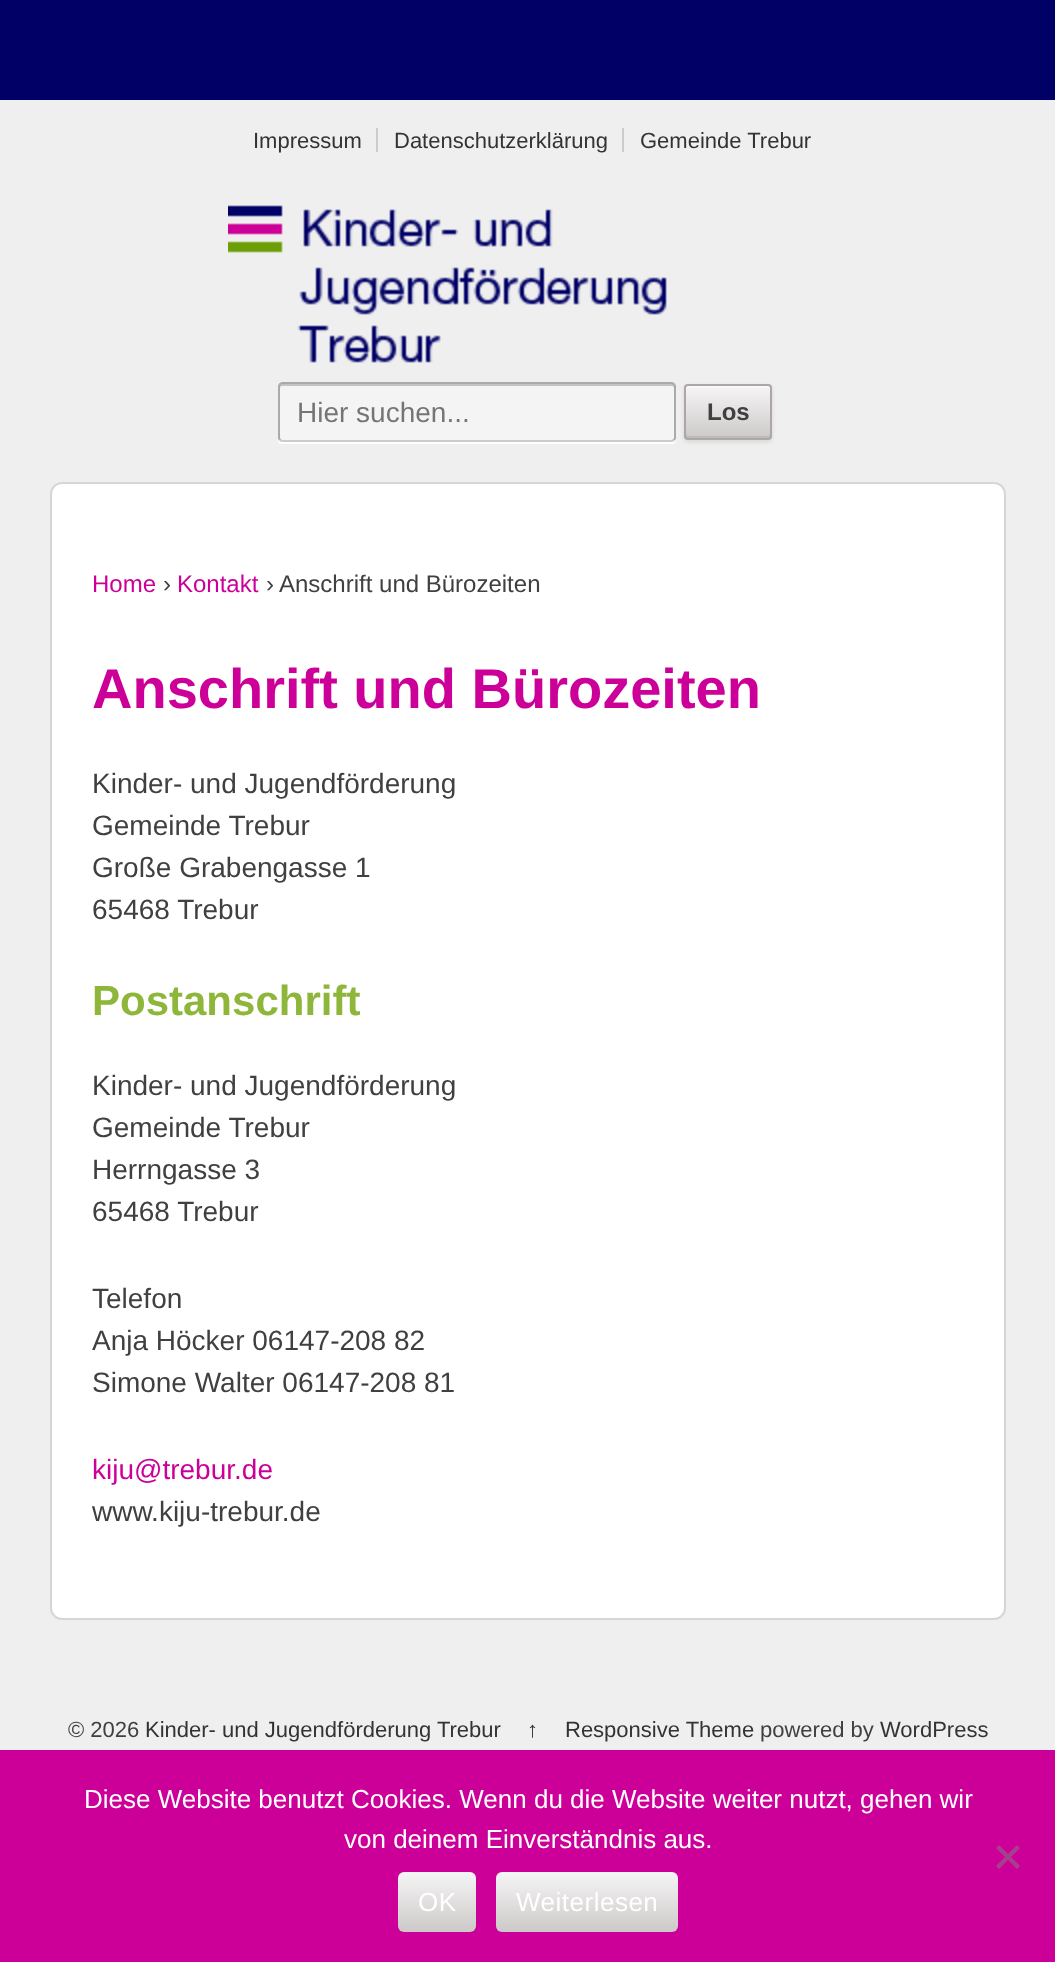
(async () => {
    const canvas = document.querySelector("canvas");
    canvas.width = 1055;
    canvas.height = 1962;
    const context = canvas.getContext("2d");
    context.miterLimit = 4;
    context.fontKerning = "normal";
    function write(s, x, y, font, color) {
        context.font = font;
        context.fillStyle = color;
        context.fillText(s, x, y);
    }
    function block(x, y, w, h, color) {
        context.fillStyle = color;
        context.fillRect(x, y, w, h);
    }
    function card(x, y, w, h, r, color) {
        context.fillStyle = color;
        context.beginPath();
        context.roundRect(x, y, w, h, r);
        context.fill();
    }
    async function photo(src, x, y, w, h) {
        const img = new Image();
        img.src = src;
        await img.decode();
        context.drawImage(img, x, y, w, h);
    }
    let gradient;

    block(0, 0, 1055, 1962, "rgb(239, 239, 239)");
    block(0, 0, 1055, 100, "rgb(0, 0, 102)");
    write("Impressum", 253, 148, "22px Liberation Sans", "rgb(51, 51, 51)");
    write("Datenschutzerklärung", 394, 148, "22px Liberation Sans", "rgb(51, 51, 51)");
    block(376, 128, 2, 24, "rgb(204, 204, 204)");
    write("Gemeinde Trebur", 640, 148, "22px Liberation Sans", "rgb(51, 51, 51)");
    block(622, 128, 2, 24, "rgb(204, 204, 204)");
    await photo("media/1.png", 228, 205, 439, 158);
    context.fillStyle = "rgb(255, 255, 255)";
    context.beginPath();
    context.moveTo(278, 438);
    context.bezierCurveTo(278, 441, 278, 444, 282, 444);
    context.lineTo(672, 444);
    context.bezierCurveTo(676, 444, 676, 441, 676, 438);
    context.bezierCurveTo(676, 440, 674, 442, 672, 442);
    context.lineTo(282, 442);
    context.bezierCurveTo(280, 442, 278, 440, 278, 438);
    context.closePath();
    context.fill();
    card(278, 382, 398, 60, 4, "rgb(244, 244, 244)");
    context.fillStyle = "rgb(195, 195, 195)";
    context.beginPath();
    context.moveTo(282, 386);
    context.lineTo(672, 386);
    context.bezierCurveTo(673, 386, 674, 387, 674, 388);
    context.lineTo(674, 386);
    context.bezierCurveTo(674, 385, 673, 384, 672, 384);
    context.lineTo(282, 384);
    context.bezierCurveTo(281, 384, 280, 385, 280, 386);
    context.lineTo(280, 388);
    context.bezierCurveTo(280, 387, 281, 386, 282, 386);
    context.closePath();
    context.fill();
    context.beginPath();
    context.moveTo(674, 440);
    context.lineTo(672, 441);
    context.lineTo(282, 441);
    context.lineTo(280, 440);
    context.strokeStyle = "rgb(204, 204, 204)";
    context.lineWidth = 2;
    context.stroke();
    context.beginPath();
    context.moveTo(280, 440);
    context.lineTo(279, 438);
    context.lineTo(279, 386);
    context.lineTo(280, 384);
    context.lineTo(282, 383);
    context.lineTo(672, 383);
    context.lineTo(674, 384);
    context.lineTo(675, 386);
    context.lineTo(675, 438);
    context.lineTo(674, 440);
    context.strokeStyle = "rgb(170, 170, 170)";
    context.stroke();
    write("Hier suchen...", 297, 422, "28px Liberation Sans", "rgb(117, 117, 117)");
    context.fillStyle = "rgba(0, 0, 0, 0.1)";
    context.filter = "blur(2px)";
    context.beginPath();
    context.roundRect(684, 386, 88, 56, 4);
    context.fill();
    context.filter = "none";
    context.save();
    context.beginPath();
    context.roundRect(684, 384, 88, 56, 4);
    context.clip();
    gradient = context.createLinearGradient(728, 386, 728, 438);
    gradient.addColorStop(0, "rgb(246, 245, 245)");
    gradient.addColorStop(1, "rgb(205, 201, 201)");
    context.fillStyle = gradient;
    context.fillRect(684, 386, 88, 52);
    context.restore();
    context.fillStyle = "rgb(248, 248, 248)";
    context.beginPath();
    context.moveTo(688, 388);
    context.lineTo(768, 388);
    context.bezierCurveTo(769, 388, 770, 389, 770, 390);
    context.lineTo(770, 388);
    context.bezierCurveTo(770, 387, 769, 386, 768, 386);
    context.lineTo(688, 386);
    context.bezierCurveTo(687, 386, 686, 387, 686, 388);
    context.lineTo(686, 390);
    context.bezierCurveTo(686, 389, 687, 388, 688, 388);
    context.closePath();
    context.fill();
    context.fillStyle = "rgb(190, 186, 186)";
    context.beginPath();
    context.moveTo(686, 434);
    context.lineTo(686, 436);
    context.bezierCurveTo(686, 437, 687, 438, 688, 438);
    context.lineTo(768, 438);
    context.bezierCurveTo(769, 438, 770, 437, 770, 436);
    context.lineTo(770, 434);
    context.bezierCurveTo(770, 435, 769, 436, 768, 436);
    context.lineTo(688, 436);
    context.bezierCurveTo(687, 436, 686, 435, 686, 434);
    context.closePath();
    context.fill();
    context.beginPath();
    context.roundRect(685, 385, 86, 54, 3);
    context.strokeStyle = "rgb(172, 166, 166)";
    context.stroke();
    write("Los", 707, 420, "bold 24px Liberation Sans", "rgb(64, 64, 64)");
    context.fillStyle = "rgb(255, 255, 255)";
    context.beginPath();
    context.roundRect(51, 483, 954, 1136, 11);
    context.fill();
    context.strokeStyle = "rgb(214, 214, 214)";
    context.stroke();
    write("Home", 92, 592, "24px Liberation Sans", "rgb(204, 0, 153)");
    write("›", 163, 592, "24px Liberation Sans", "rgb(64, 64, 64)");
    write("Kontakt", 177, 592, "24px Liberation Sans", "rgb(204, 0, 153)");
    write("›", 266, 592, "24px Liberation Sans", "rgb(64, 64, 64)");
    write("Anschrift und Bürozeiten", 279, 592, "24px Liberation Sans", "rgb(64, 64, 64)");
    write("Anschrift und Bürozeiten", 92, 708, "bold 56px Liberation Sans", "rgb(204, 0, 153)");
    write("Kinder- und Jugendförderung", 92, 793, "28px Liberation Sans", "rgb(64, 64, 64)");
    write("Gemeinde Trebur", 92, 835, "28px Liberation Sans", "rgb(64, 64, 64)");
    write("Große Grabengasse 1", 92, 877, "28px Liberation Sans", "rgb(64, 64, 64)");
    write("65468 Trebur", 92, 919, "28px Liberation Sans", "rgb(64, 64, 64)");
    write("Postanschrift", 92, 1015, "bold 42px Liberation Sans", "rgb(141, 182, 58)");
    write("Kinder- und Jugendförderung", 92, 1095, "28px Liberation Sans", "rgb(64, 64, 64)");
    write("Gemeinde Trebur", 92, 1137, "28px Liberation Sans", "rgb(64, 64, 64)");
    write("Herrngasse 3", 92, 1179, "28px Liberation Sans", "rgb(64, 64, 64)");
    write("65468 Trebur", 92, 1221, "28px Liberation Sans", "rgb(64, 64, 64)");
    write("Telefon", 92, 1308, "28px Liberation Sans", "rgb(64, 64, 64)");
    write("Anja Höcker 06147-208 82", 92, 1350, "28px Liberation Sans", "rgb(64, 64, 64)");
    write("Simone Walter 06147-208 81", 92, 1392, "28px Liberation Sans", "rgb(64, 64, 64)");
    write("kiju@trebur.de", 92, 1479, "28px Liberation Sans", "rgb(204, 0, 153)");
    write("www.kiju-trebur.de", 92, 1521, "28px Liberation Sans", "rgb(64, 64, 64)");
    write("© 2026", 68, 1737, "22px Liberation Sans", "rgb(64, 64, 64)");
    write("Kinder- und Jugendförderung Trebur", 145, 1737, "22px Liberation Sans", "rgb(51, 51, 51)");
    write("↑", 527, 1737, "22px Liberation Sans", "rgb(51, 51, 51)");
    write("Responsive Theme", 565, 1737, "22px Liberation Sans", "rgb(51, 51, 51)");
    write("powered by", 760, 1737, "22px Liberation Sans", "rgb(64, 64, 64)");
    write("WordPress", 880, 1737, "22px Liberation Sans", "rgb(51, 51, 51)");
    block(0, 1750, 1055, 212, "rgb(204, 0, 153)");
    write("Diese Website benutzt Cookies. Wenn du die Website weiter nutzt, gehen wir", 84, 1808, "26px Liberation Sans", "rgb(255, 255, 255)");
    write("von deinem Einverständnis aus.", 344, 1848, "26px Liberation Sans", "rgb(255, 255, 255)");
    context.fillStyle = "rgb(166, 64, 141)";
    context.beginPath();
    context.moveTo(1017, 1845);
    context.lineTo(1020, 1848);
    context.lineTo(999, 1869);
    context.lineTo(996, 1866);
    context.closePath();
    context.fill();
    context.beginPath();
    context.moveTo(996, 1848);
    context.lineTo(999, 1845);
    context.lineTo(1020, 1866);
    context.lineTo(1017, 1869);
    context.closePath();
    context.fill();
    gradient = context.createLinearGradient(437, 1872, 437, 1932);
    gradient.addColorStop(0, "rgb(246, 245, 245)");
    gradient.addColorStop(1, "rgb(205, 201, 201)");
    context.fillStyle = gradient;
    context.beginPath();
    context.roundRect(398, 1872, 78, 60, 6);
    context.fill();
    context.letterSpacing = "0.5px";
    write("OK", 418, 1911, "26px Liberation Sans", "rgb(255, 255, 255)");
    gradient = context.createLinearGradient(587, 1872, 587, 1932);
    gradient.addColorStop(0, "rgb(246, 245, 245)");
    gradient.addColorStop(1, "rgb(205, 201, 201)");
    context.fillStyle = gradient;
    context.beginPath();
    context.roundRect(496, 1872, 182, 60, 6);
    context.fill();
    write("Weiterlesen", 516, 1911, "26px Liberation Sans", "rgb(255, 255, 255)");
})();
